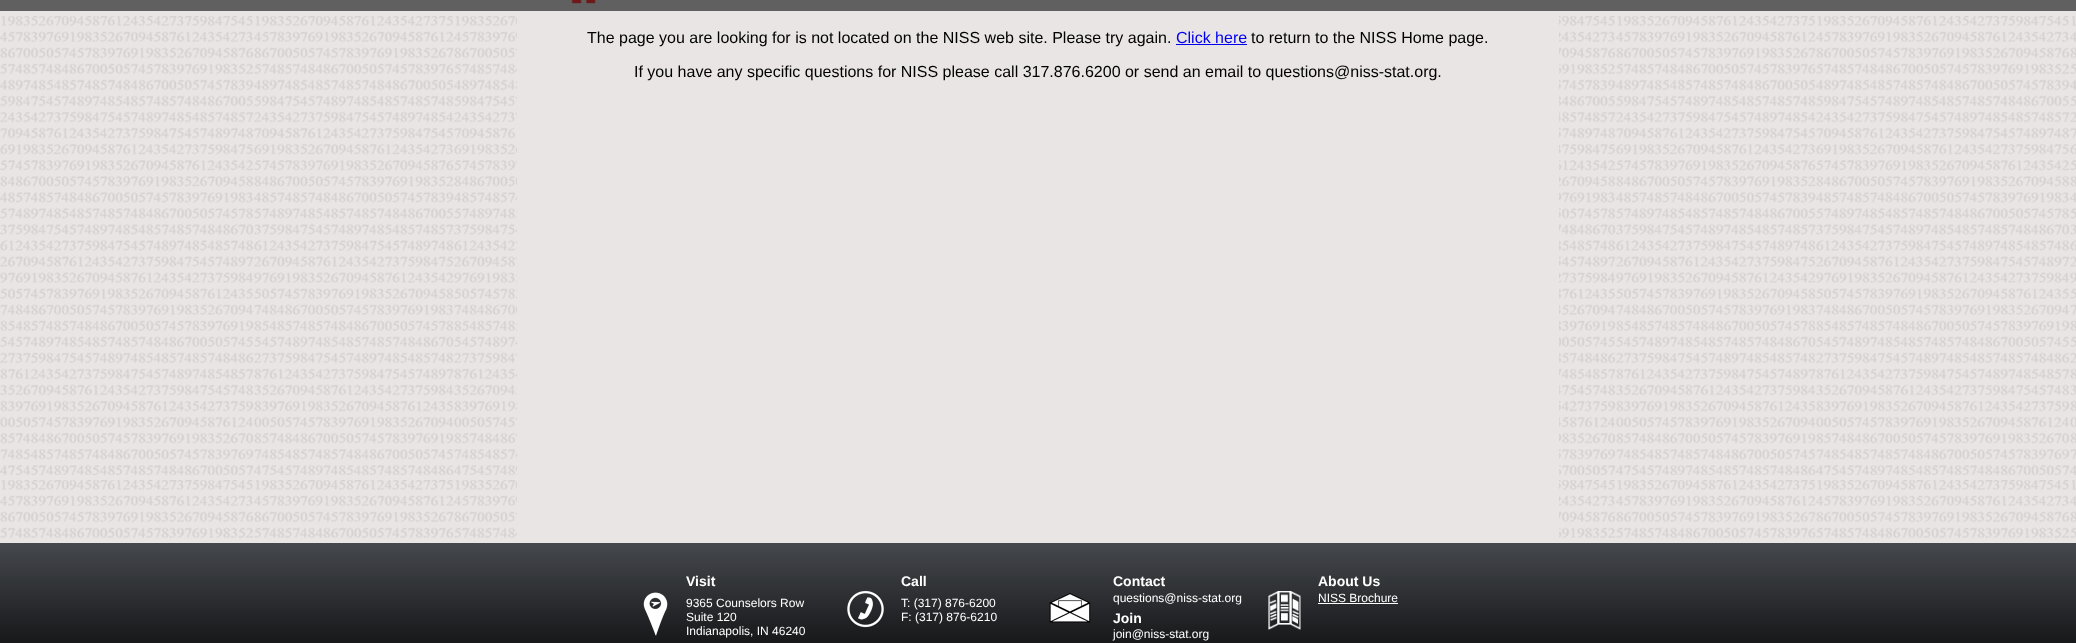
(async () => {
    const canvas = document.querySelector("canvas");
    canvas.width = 2076;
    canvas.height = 643;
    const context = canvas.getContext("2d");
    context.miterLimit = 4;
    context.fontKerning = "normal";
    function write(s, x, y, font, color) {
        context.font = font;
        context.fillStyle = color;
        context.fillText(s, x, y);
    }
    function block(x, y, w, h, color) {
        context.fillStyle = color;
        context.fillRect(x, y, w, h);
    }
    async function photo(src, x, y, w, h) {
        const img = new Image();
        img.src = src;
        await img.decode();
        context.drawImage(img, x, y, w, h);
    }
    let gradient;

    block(0, 0, 2076, 643, "rgb(234, 229, 229)");
    block(0, 0, 2076, 11, "rgb(96, 96, 96)");
    await photo("media/1.png", 571, 0, 25, 4);
    await photo("media/2.png", 0, 16, 2076, 522);
    block(517, 16, 1042, 522, "rgb(234, 229, 229)");
    write("The page you are looking for is not located on the NISS web site. Please try again.", 587, 43, "16px Liberation Sans", "rgb(0, 0, 0)");
    write("Click here", 1176, 43, "16px Liberation Sans", "rgb(0, 0, 238)");
    block(1176, 44, 71, 1, "rgb(0, 0, 238)");
    write("to return to the NISS Home page.", 1251, 43, "16px Liberation Sans", "rgb(0, 0, 0)");
    write("If you have any specific questions for NISS please call 317.876.6200 or send an email to questions@niss-stat.org.", 634, 77, "16px Liberation Sans", "rgb(0, 0, 0)");
    gradient = context.createLinearGradient(0, 543, 0, 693);
    gradient.addColorStop(0, "rgb(69, 72, 77)");
    gradient.addColorStop(1, "rgb(0, 0, 0)");
    context.fillStyle = gradient;
    context.fillRect(0, 543, 2076, 100);
    write("Visit", 686, 586, "bold 14px Liberation Sans", "rgb(255, 255, 255)");
    await photo("media/3.png", 643, 592, 25, 44);
    write("9365 Counselors Row", 686, 607, "12px Liberation Sans", "rgb(255, 255, 255)");
    write("Suite 120", 686, 621, "12px Liberation Sans", "rgb(255, 255, 255)");
    write("Indianapolis, IN 46240", 686, 635, "12px Liberation Sans", "rgb(255, 255, 255)");
    write("Call", 901, 586, "bold 14px Liberation Sans", "rgb(255, 255, 255)");
    await photo("media/4.png", 847, 590, 37, 38);
    write("T: (317) 876-6200", 901, 607, "12px Liberation Sans", "rgb(255, 255, 255)");
    write("F: (317) 876-6210", 901, 621, "12px Liberation Sans", "rgb(255, 255, 255)");
    write("Contact", 1113, 586, "bold 14px Liberation Sans", "rgb(255, 255, 255)");
    await photo("media/5.png", 1049, 593, 42, 30);
    write("questions@niss-stat.org", 1113, 602, "12px Liberation Sans", "rgb(255, 255, 255)");
    write("Join", 1113, 623, "bold 14px Liberation Sans", "rgb(255, 255, 255)");
    write("join@niss-stat.org", 1113, 638, "12px Liberation Sans", "rgb(255, 255, 255)");
    write("About Us", 1318, 586, "bold 14px Liberation Sans", "rgb(255, 255, 255)");
    await photo("media/6.png", 1268, 591, 33, 39);
    write("NISS Brochure", 1318, 602, "12px Liberation Sans", "rgb(255, 255, 255)");
    block(1318, 603, 80, 1, "rgb(255, 255, 255)");
})();
